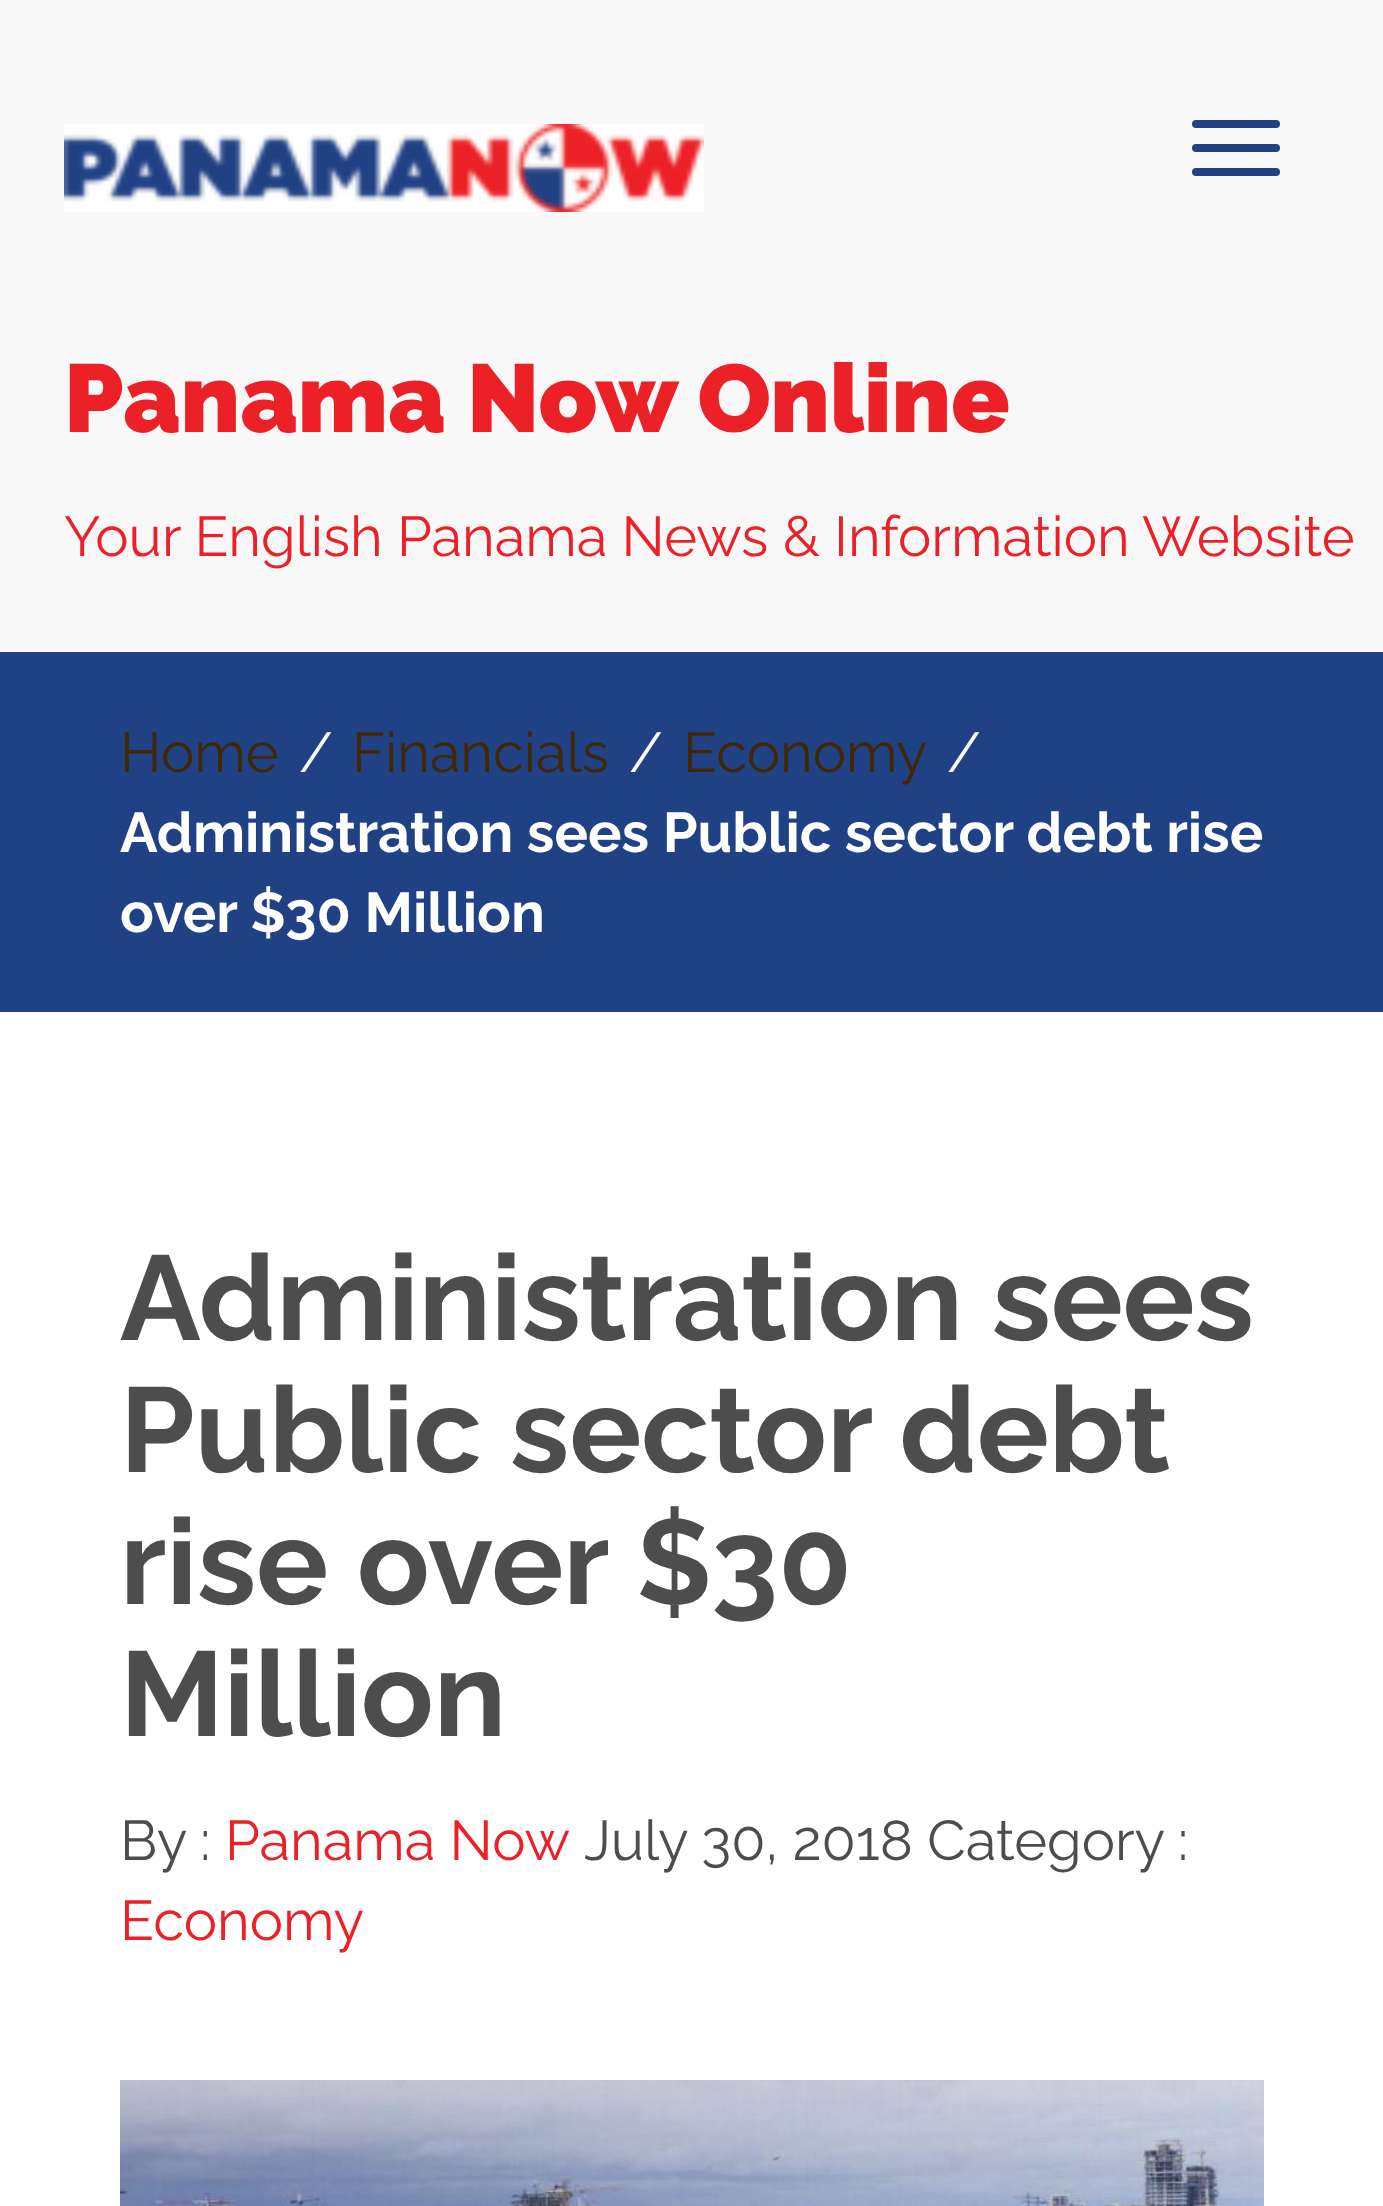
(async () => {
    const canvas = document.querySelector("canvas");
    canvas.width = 1383;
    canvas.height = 2206;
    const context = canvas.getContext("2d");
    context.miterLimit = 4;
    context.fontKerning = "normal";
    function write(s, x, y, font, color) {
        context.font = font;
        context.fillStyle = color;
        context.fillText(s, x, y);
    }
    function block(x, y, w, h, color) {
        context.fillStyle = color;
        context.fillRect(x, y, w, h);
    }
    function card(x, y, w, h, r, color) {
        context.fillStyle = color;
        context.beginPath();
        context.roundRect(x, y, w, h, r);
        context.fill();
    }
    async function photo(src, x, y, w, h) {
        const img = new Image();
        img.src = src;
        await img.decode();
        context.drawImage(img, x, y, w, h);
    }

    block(0, 0, 1383, 2206, "rgb(255, 255, 255)");
    block(0, 0, 1383, 652, "rgb(248, 248, 248)");
    card(1192, 120, 88, 8, 4, "rgb(32, 66, 133)");
    card(1192, 144, 88, 8, 4, "rgb(32, 66, 133)");
    card(1192, 168, 88, 8, 4, "rgb(32, 66, 133)");
    await photo("media/1.png", 64, 124, 640, 88);
    write("Panama Now Online", 64, 432, "900 96px Raleway", "rgb(236, 32, 39)");
    write("Your English Panama News & Information Website", 64, 556, "56px Raleway", "rgb(236, 32, 39)");
    block(0, 652, 1383, 360, "rgb(32, 66, 133)");
    write("Home", 120, 772, "56px Raleway", "rgb(64, 40, 4)");
    write("/", 299, 772, "56px Raleway", "rgb(255, 255, 255)");
    write("Financials", 352, 772, "56px Raleway", "rgb(64, 40, 4)");
    write("/", 629, 772, "56px Raleway", "rgb(255, 255, 255)");
    write("Economy", 683, 772, "56px Raleway", "rgb(64, 40, 4)");
    write("/", 947, 772, "56px Raleway", "rgb(255, 255, 255)");
    write("Administration sees Public sector debt rise", 120, 852, "bold 56px Raleway", "rgb(255, 255, 255)");
    write("over $30 Million", 120, 932, "bold 56px Raleway", "rgb(255, 255, 255)");
    write("Administration sees", 120, 1340, "bold 120px Raleway", "rgb(77, 77, 77)");
    write("Public sector debt", 120, 1472, "bold 120px Raleway", "rgb(77, 77, 77)");
    write("rise over $30", 120, 1604, "bold 120px Raleway", "rgb(77, 77, 77)");
    write("Million", 120, 1736, "bold 120px Raleway", "rgb(77, 77, 77)");
    write("By :", 120, 1860, "56px Raleway", "rgb(77, 77, 77)");
    write("Panama Now", 225, 1860, "56px Raleway", "rgb(236, 32, 39)");
    write("July 30, 2018 Category :", 584, 1860, "56px Raleway", "rgb(77, 77, 77)");
    write("Economy", 120, 1940, "56px Raleway", "rgb(236, 32, 39)");
    await photo("media/2.png", 120, 2080, 1144, 126);
})();
